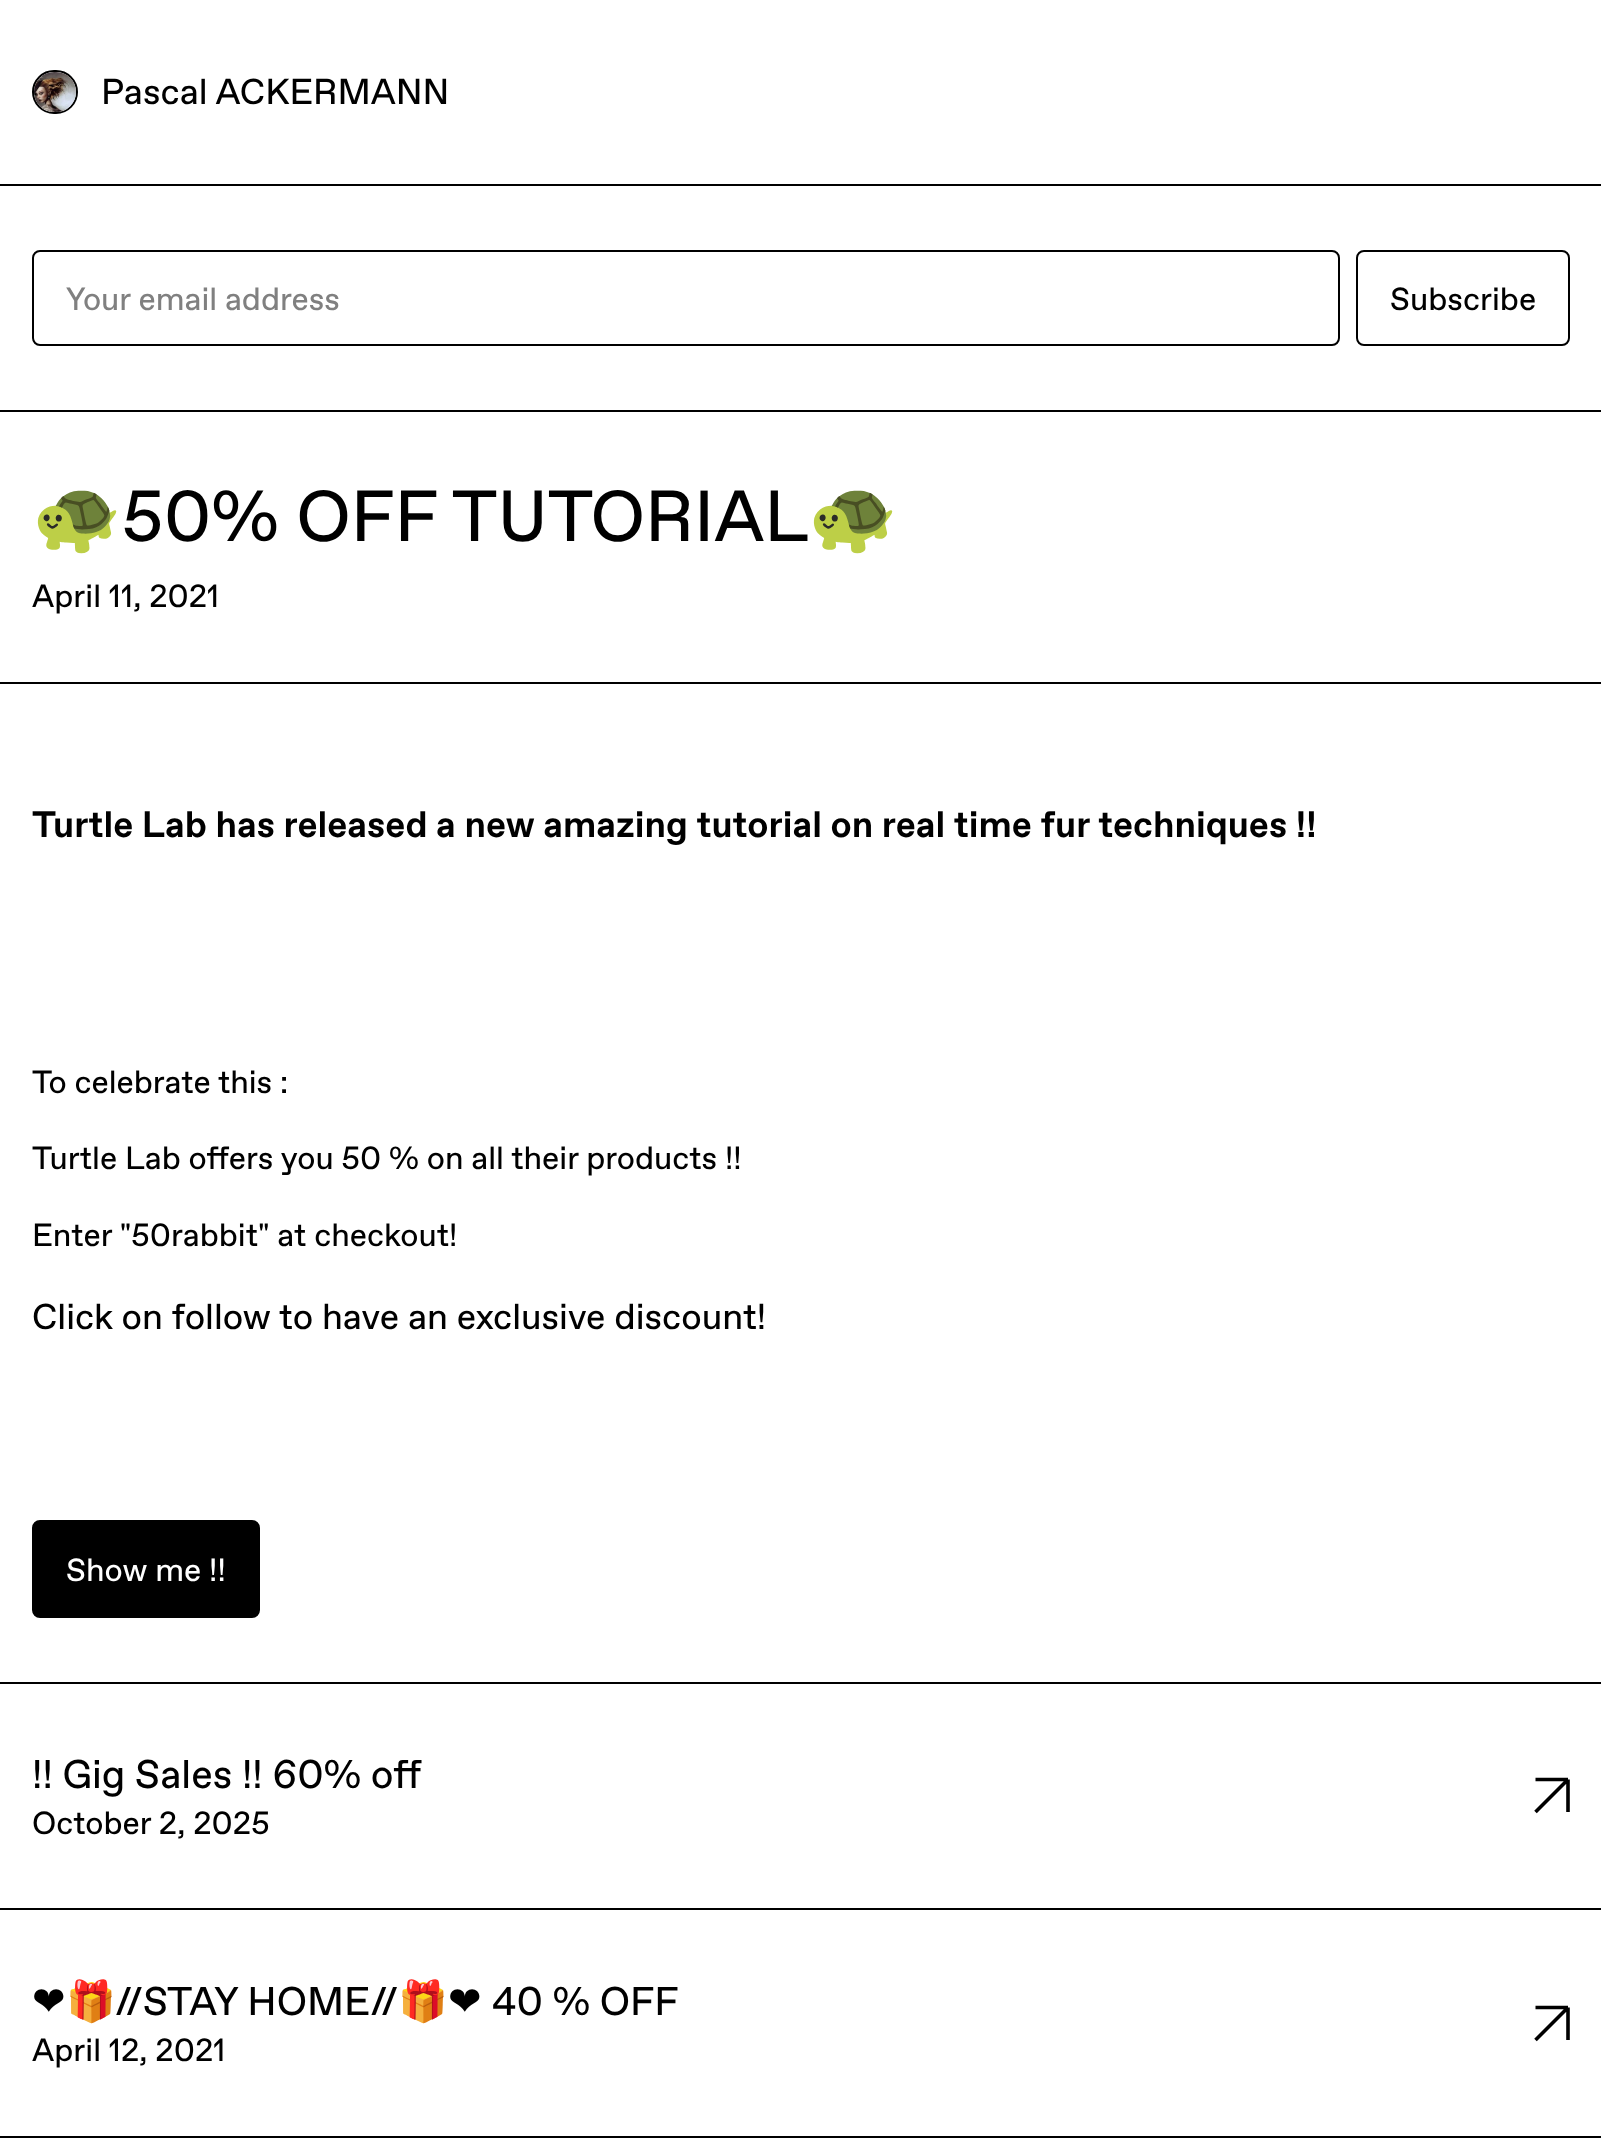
(async () => {
    const canvas = document.querySelector("canvas");
    canvas.width = 1601;
    canvas.height = 2144;
    const context = canvas.getContext("2d");
    context.miterLimit = 4;
    context.fontKerning = "normal";
    function write(s, x, y, font, color) {
        context.font = font;
        context.fillStyle = color;
        context.fillText(s, x, y);
    }
    function block(x, y, w, h, color) {
        context.fillStyle = color;
        context.fillRect(x, y, w, h);
    }
    async function photo(src, x, y, w, h) {
        const img = new Image();
        img.src = src;
        await img.decode();
        context.drawImage(img, x, y, w, h);
    }

    block(0, 0, 1601, 2144, "rgb(255, 255, 255)");
    block(0, 184, 1601, 2, "rgb(0, 0, 0)");
    context.beginPath();
    context.roundRect(33, 71, 44, 42, 21);
    context.strokeStyle = "rgb(0, 0, 0)";
    context.lineWidth = 2;
    context.stroke();
    await photo("media/1.png", 34, 72, 42, 40);
    write("Pascal ACKERMANN", 101, 104, "36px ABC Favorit", "rgb(0, 0, 0)");
    block(0, 410, 1601, 2, "rgb(0, 0, 0)");
    context.beginPath();
    context.roundRect(33, 251, 1306, 94, 7);
    context.stroke();
    write("Your email address", 66, 310, "32px ABC Favorit", "rgb(128, 128, 128)");
    context.beginPath();
    context.roundRect(1357, 251, 212, 94, 7);
    context.stroke();
    write("Subscribe", 1390, 310, "32px ABC Favorit", "rgb(0, 0, 0)");
    block(0, 682, 1601, 2, "rgb(0, 0, 0)");
    write("🐢", 32, 541, "72px Noto Color Emoji", "rgb(0, 0, 0)");
    write("50% OFF TUTORIAL", 122, 541, "72px ABC Favorit", "rgb(0, 0, 0)");
    write("🐢", 808, 541, "72px Noto Color Emoji", "rgb(0, 0, 0)");
    write("April 11, 2021", 32, 607, "32px ABC Favorit", "rgb(0, 0, 0)");
    block(0, 1682, 1601, 2, "rgb(0, 0, 0)");
    write("Turtle Lab has released a new amazing tutorial on real time fur techniques !!", 32, 837, "bold 36.8px ABC Favorit", "rgb(0, 0, 0)");
    write("To celebrate this :", 32, 1093, "32px ABC Favorit", "rgb(0, 0, 0)");
    write("Turtle Lab offers you 50 % on all their products !!", 32, 1169, "32px ABC Favorit", "rgb(0, 0, 0)");
    write("Enter \"50rabbit\" at checkout!", 32, 1246, "32px ABC Favorit", "rgb(0, 0, 0)");
    write("Click on follow to have an exclusive discount!", 32, 1329, "36px ABC Favorit", "rgb(0, 0, 0)");
    context.beginPath();
    context.roundRect(33, 1521, 226, 96, 7);
    context.fill();
    context.stroke();
    write("Show me !!", 66, 1581, "32px ABC Favorit", "rgb(255, 255, 255)");
    block(0, 1908, 1601, 2, "rgb(0, 0, 0)");
    write("!! Gig Sales !! 60% off", 32, 1788, "40px ABC Favorit", "rgb(0, 0, 0)");
    write("October 2, 2025", 32, 1834, "32px ABC Favorit", "rgb(0, 0, 0)");
    context.beginPath();
    context.moveTo(1535.5, 1812);
    context.lineTo(1568, 1779.5);
    context.moveTo(1568, 1779.5);
    context.lineTo(1535.5, 1779.5);
    context.moveTo(1568, 1779.5);
    context.lineTo(1568, 1812);
    context.lineWidth = 3.6;
    context.stroke();
    block(0, 2136, 1601, 2, "rgb(0, 0, 0)");
    write("❤", 32, 2015, "40px DejaVu Sans", "rgb(0, 0, 0)");
    write("🎁", 66, 2015, "40px Noto Color Emoji", "rgb(0, 0, 0)");
    write("//STAY HOME//", 115, 2015, "40px ABC Favorit", "rgb(0, 0, 0)");
    write("🎁", 398, 2015, "40px Noto Color Emoji", "rgb(0, 0, 0)");
    write("❤", 448, 2015, "40px DejaVu Sans", "rgb(0, 0, 0)");
    write("40 % OFF", 492, 2015, "40px ABC Favorit", "rgb(0, 0, 0)");
    write("April 12, 2021", 32, 2061, "32px ABC Favorit", "rgb(0, 0, 0)");
    context.beginPath();
    context.moveTo(1535.5, 2040);
    context.lineTo(1568, 2007.5);
    context.moveTo(1568, 2007.5);
    context.lineTo(1535.5, 2007.5);
    context.moveTo(1568, 2007.5);
    context.lineTo(1568, 2040);
    context.stroke();
})();
